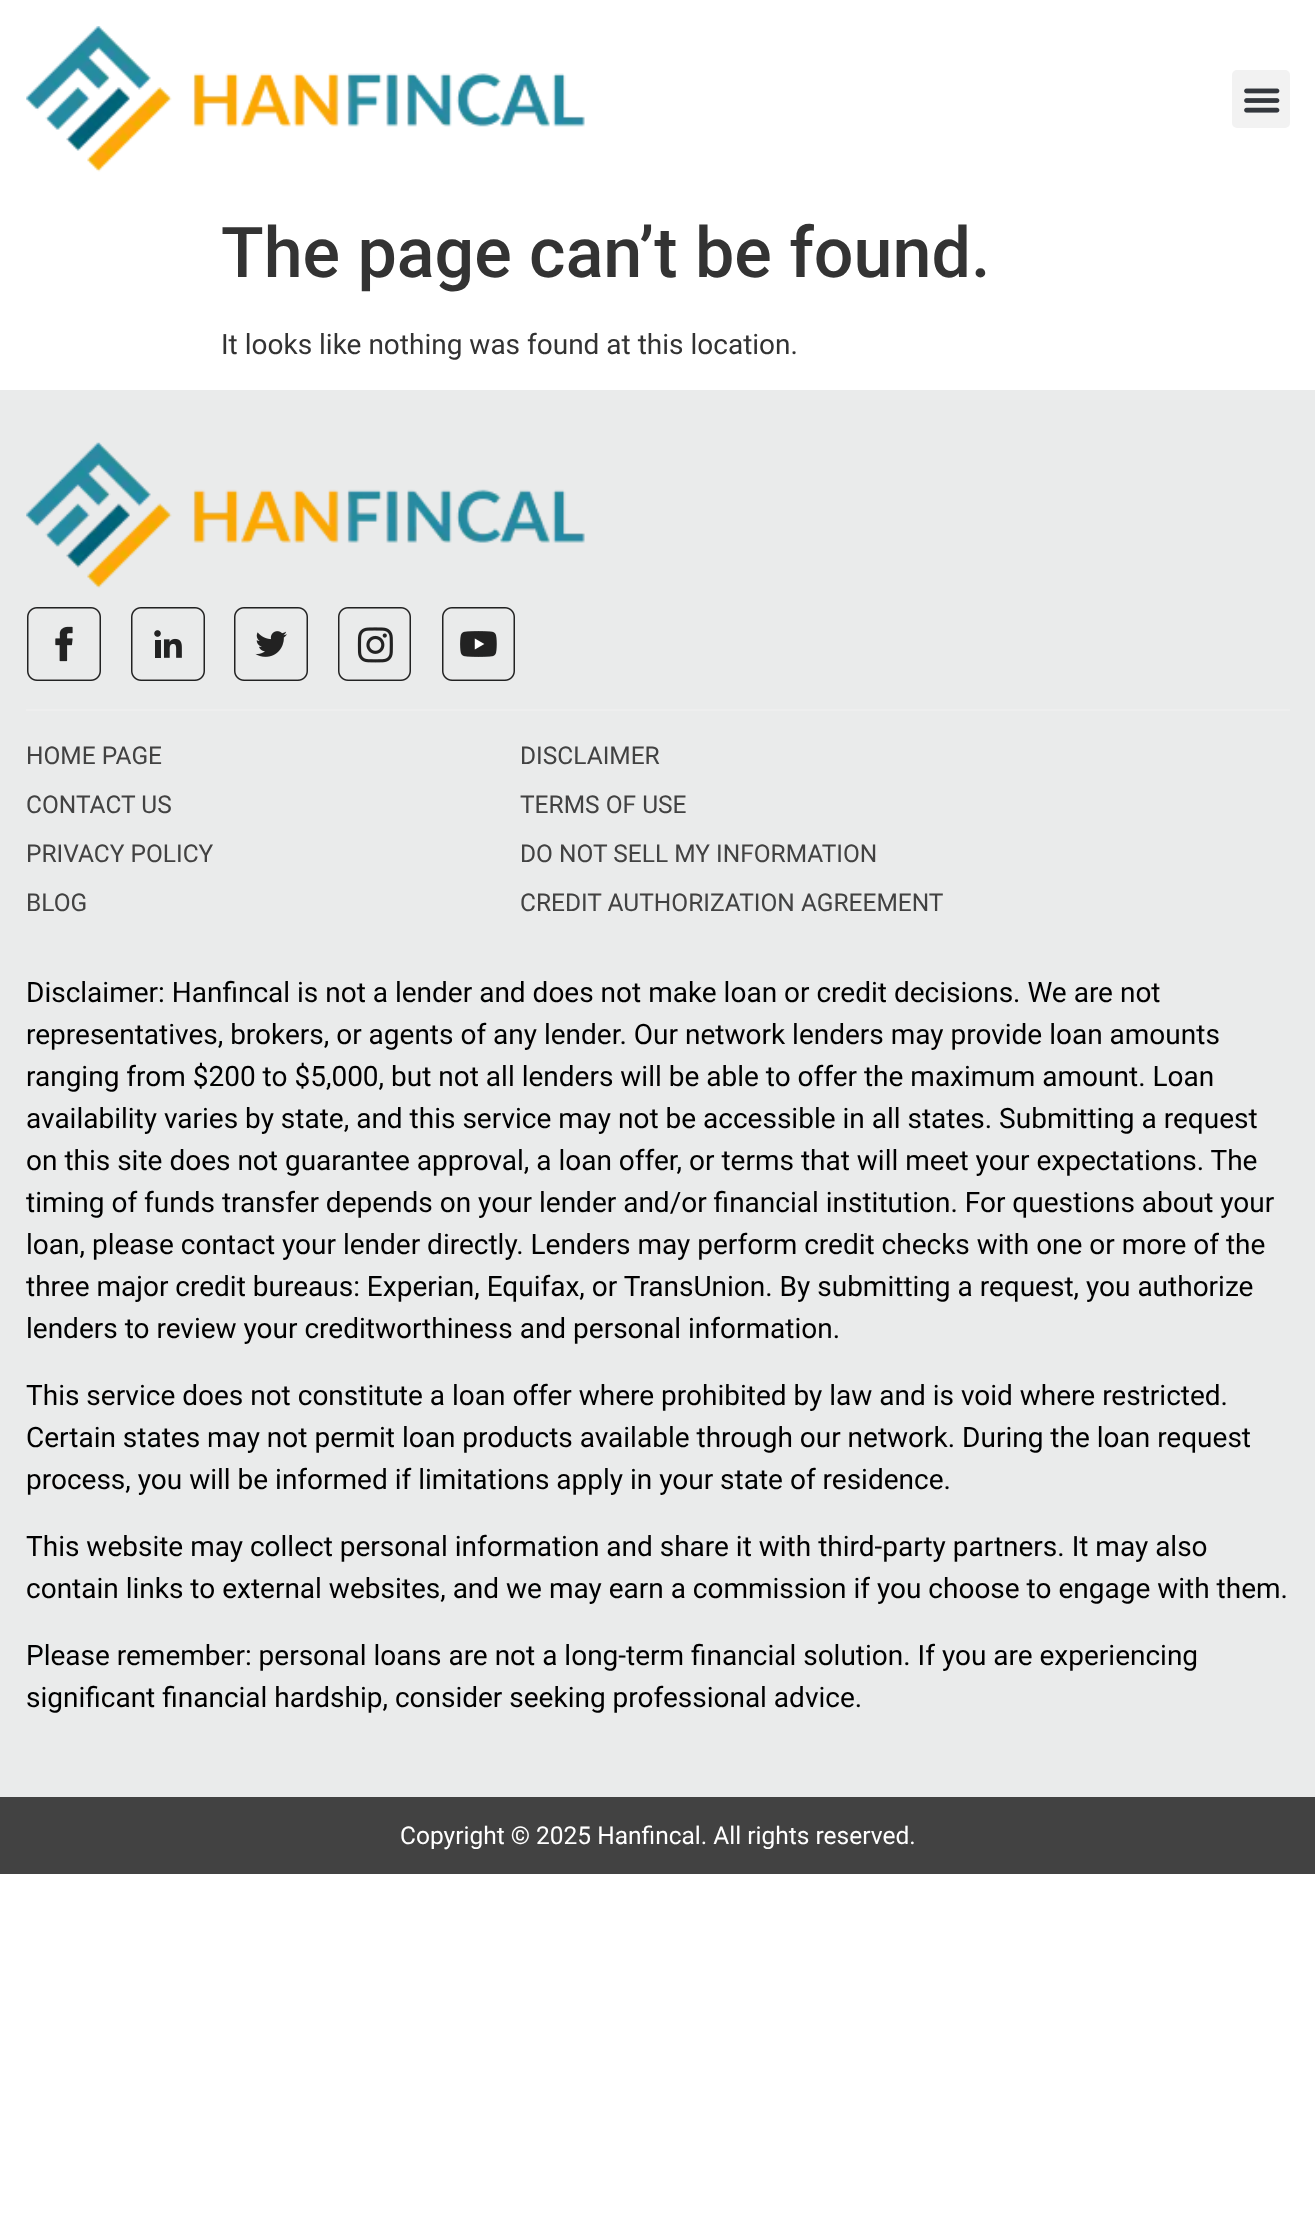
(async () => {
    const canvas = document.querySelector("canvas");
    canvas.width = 1315;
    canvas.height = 2219;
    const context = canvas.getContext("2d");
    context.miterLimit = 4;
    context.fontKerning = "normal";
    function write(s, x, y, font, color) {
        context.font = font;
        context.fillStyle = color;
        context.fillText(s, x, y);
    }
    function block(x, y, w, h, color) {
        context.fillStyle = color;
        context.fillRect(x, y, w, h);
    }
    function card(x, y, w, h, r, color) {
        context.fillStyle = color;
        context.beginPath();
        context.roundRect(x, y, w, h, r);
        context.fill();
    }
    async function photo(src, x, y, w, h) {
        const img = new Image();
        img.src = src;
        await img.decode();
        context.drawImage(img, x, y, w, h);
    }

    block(0, 0, 1315, 2219, "rgb(255, 255, 255)");
    await photo("media/1.png", 26, 26, 559, 146);
    card(1232, 70, 58, 58, 5, "rgb(242, 242, 242)");
    await photo("media/2.png", 1244, 88, 36, 25);
    write("The page can’t be found.", 221, 277, "500 70px Roboto", "rgb(51, 51, 51)");
    write("It looks like nothing was found at this location.", 221, 354, "28px Roboto", "rgb(51, 51, 51)");
    block(0, 390, 1315, 1407, "rgb(234, 235, 235)");
    block(26, 709, 1264, 2, "rgb(238, 238, 238)");
    await photo("media/3.png", 26, 442, 559, 146);
    await photo("media/4.png", 27, 607, 74, 74);
    await photo("media/5.png", 131, 607, 74, 74);
    await photo("media/6.png", 234, 607, 74, 74);
    await photo("media/7.png", 338, 607, 73, 74);
    await photo("media/8.png", 442, 607, 73, 74);
    write("HOME PAGE", 26, 764, "24.5px Roboto", "rgb(66, 66, 66)");
    write("DISCLAIMER", 520, 764, "24.5px Roboto", "rgb(66, 66, 66)");
    write("CONTACT US", 26, 813, "24.5px Roboto", "rgb(66, 66, 66)");
    write("TERMS OF USE", 520, 813, "24.5px Roboto", "rgb(66, 66, 66)");
    write("PRIVACY POLICY", 26, 862, "24.5px Roboto", "rgb(66, 66, 66)");
    write("DO NOT SELL MY INFORMATION", 520, 862, "24.5px Roboto", "rgb(66, 66, 66)");
    write("BLOG", 26, 911, "24.5px Roboto", "rgb(66, 66, 66)");
    write("CREDIT AUTHORIZATION AGREEMENT", 520, 911, "24.5px Roboto", "rgb(66, 66, 66)");
    write("Disclaimer: Hanfincal is not a lender and does not make loan or credit decisions. We are not", 26, 1002, "28px Roboto", "rgb(0, 0, 0)");
    write("representatives, brokers, or agents of any lender. Our network lenders may provide loan amounts", 26, 1044, "28px Roboto", "rgb(0, 0, 0)");
    write("ranging from $200 to $5,000, but not all lenders will be able to offer the maximum amount. Loan", 26, 1086, "28px Roboto", "rgb(0, 0, 0)");
    write("availability varies by state, and this service may not be accessible in all states. Submitting a request", 26, 1128, "28px Roboto", "rgb(0, 0, 0)");
    write("on this site does not guarantee approval, a loan offer, or terms that will meet your expectations. The", 26, 1170, "28px Roboto", "rgb(0, 0, 0)");
    write("timing of funds transfer depends on your lender and/or financial institution. For questions about your", 26, 1212, "28px Roboto", "rgb(0, 0, 0)");
    write("loan, please contact your lender directly. Lenders may perform credit checks with one or more of the", 26, 1254, "28px Roboto", "rgb(0, 0, 0)");
    write("three major credit bureaus: Experian, Equifax, or TransUnion. By submitting a request, you authorize", 26, 1296, "28px Roboto", "rgb(0, 0, 0)");
    write("lenders to review your creditworthiness and personal information.", 26, 1338, "28px Roboto", "rgb(0, 0, 0)");
    write("This service does not constitute a loan offer where prohibited by law and is void where restricted.", 26, 1405, "28px Roboto", "rgb(0, 0, 0)");
    write("Certain states may not permit loan products available through our network. During the loan request", 26, 1447, "28px Roboto", "rgb(0, 0, 0)");
    write("process, you will be informed if limitations apply in your state of residence.", 26, 1489, "28px Roboto", "rgb(0, 0, 0)");
    write("This website may collect personal information and share it with third-party partners. It may also", 26, 1556, "28px Roboto", "rgb(0, 0, 0)");
    write("contain links to external websites, and we may earn a commission if you choose to engage with them.", 26, 1598, "28px Roboto", "rgb(0, 0, 0)");
    write("Please remember: personal loans are not a long-term financial solution. If you are experiencing", 26, 1665, "28px Roboto", "rgb(0, 0, 0)");
    write("significant financial hardship, consider seeking professional advice.", 26, 1707, "28px Roboto", "rgb(0, 0, 0)");
    block(0, 1797, 1315, 77, "rgb(66, 66, 66)");
    write("Copyright © 2025 Hanfincal. All rights reserved.", 400, 1844, "24.5px Roboto", "rgb(255, 255, 255)");
})();
